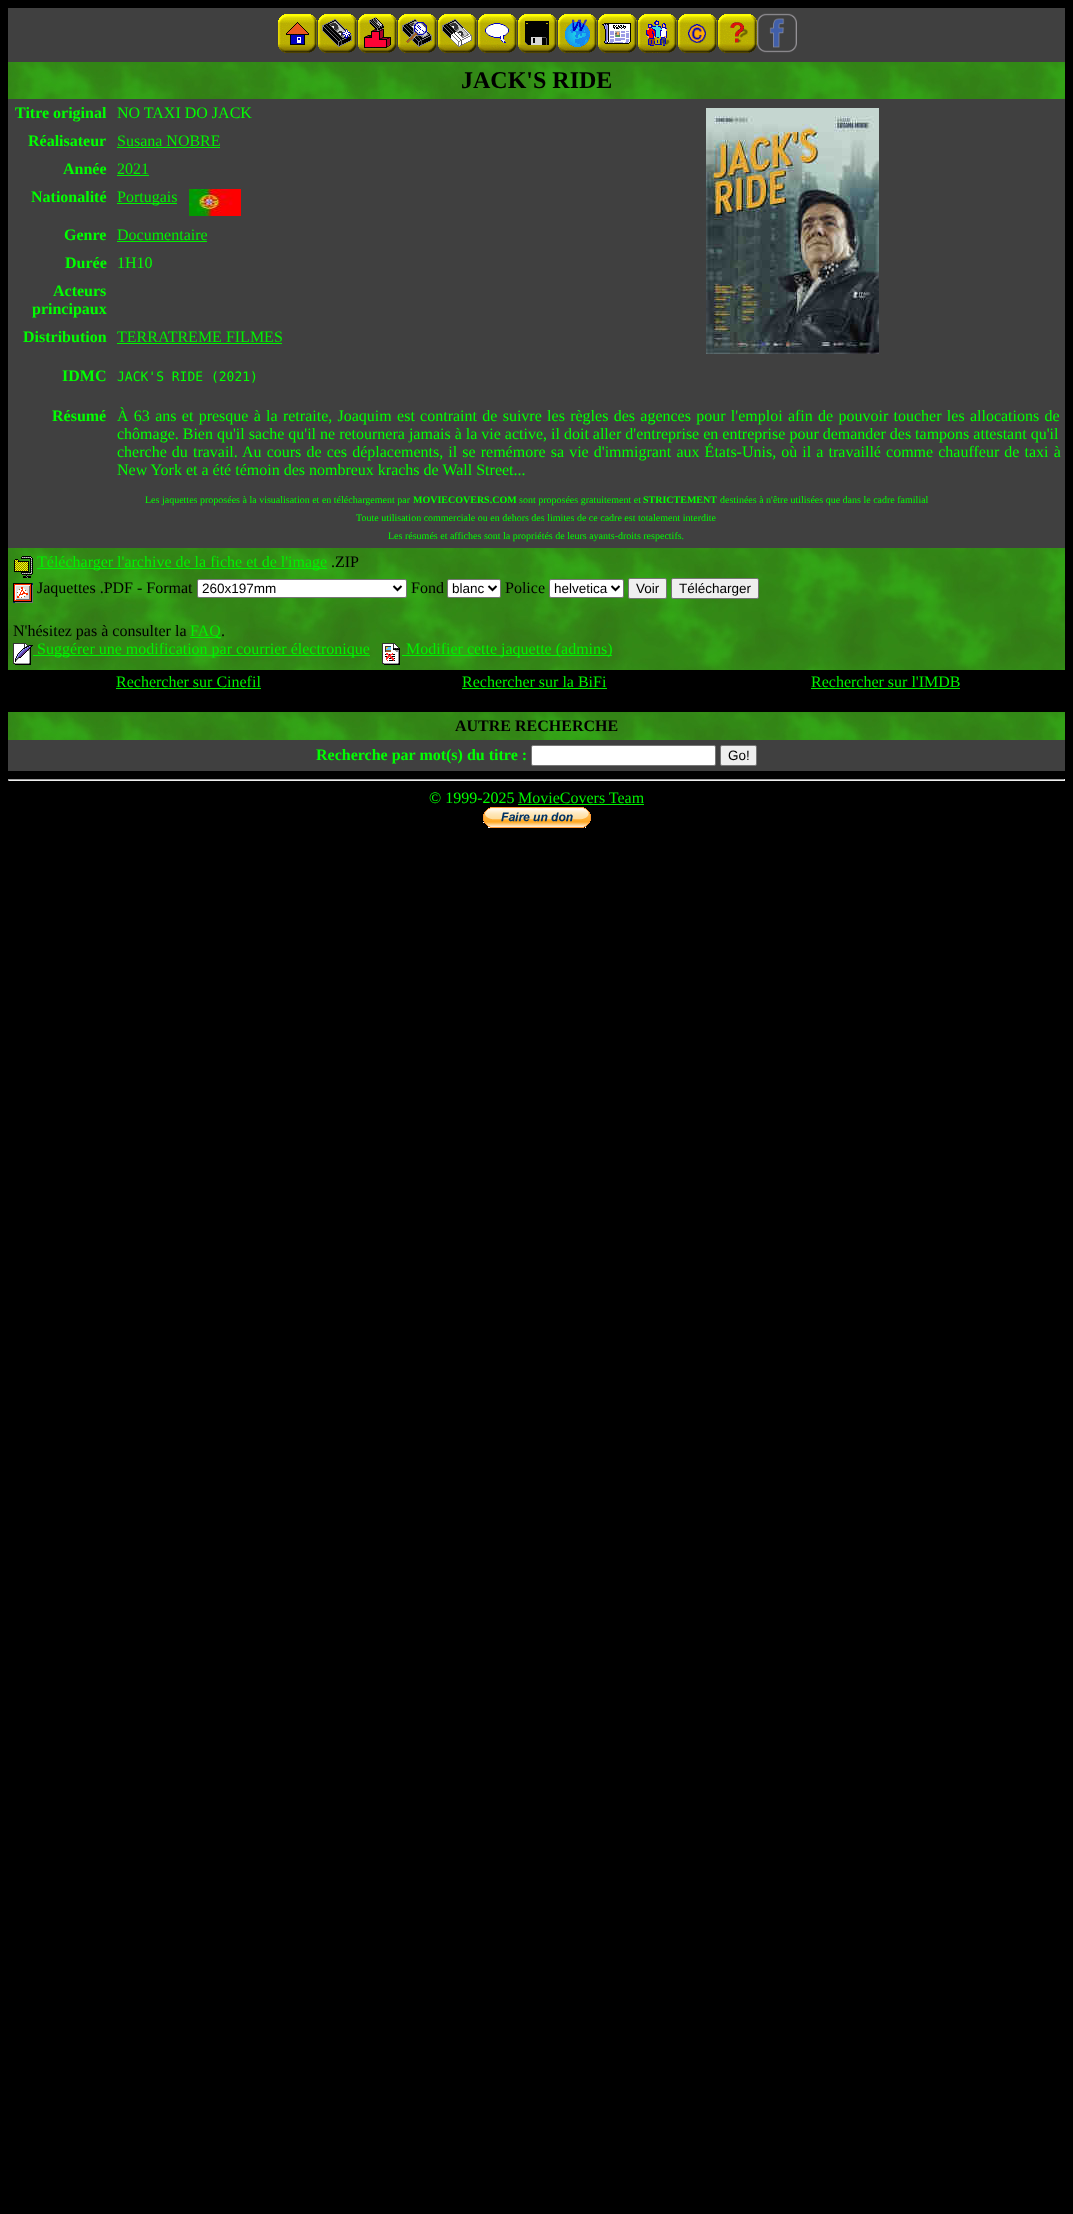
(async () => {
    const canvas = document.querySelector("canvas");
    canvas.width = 1073;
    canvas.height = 2214;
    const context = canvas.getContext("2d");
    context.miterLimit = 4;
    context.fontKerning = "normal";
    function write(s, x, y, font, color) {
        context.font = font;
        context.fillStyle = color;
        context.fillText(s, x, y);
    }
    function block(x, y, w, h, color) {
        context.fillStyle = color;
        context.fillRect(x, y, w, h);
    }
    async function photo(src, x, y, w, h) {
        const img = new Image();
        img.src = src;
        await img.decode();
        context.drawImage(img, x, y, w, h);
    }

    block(0, 0, 1073, 2214, "rgb(0, 0, 0)");
    block(8, 8, 1057, 54, "rgb(64, 64, 64)");
    await photo("media/1.png", 278, 14, 39, 39);
    await photo("media/2.png", 318, 14, 39, 39);
    await photo("media/3.png", 358, 14, 39, 39);
    await photo("media/4.png", 398, 14, 39, 39);
    await photo("media/5.png", 438, 14, 39, 39);
    await photo("media/6.png", 478, 14, 39, 39);
    await photo("media/7.png", 518, 14, 39, 39);
    await photo("media/8.png", 558, 14, 39, 39);
    await photo("media/9.png", 598, 14, 39, 39);
    await photo("media/10.png", 638, 14, 39, 39);
    await photo("media/11.png", 678, 14, 39, 39);
    await photo("media/12.png", 718, 14, 39, 39);
    await photo("media/13.png", 757, 13, 40, 40);
    block(8, 99, 1057, 449, "rgb(64, 64, 64)");
    await photo("media/14.png", 8, 62, 1057, 37);
    write("JACK'S RIDE", 461, 88, "bold 24px Liberation Serif", "rgb(0, 0, 0)");
    write("Titre original", 15, 118, "bold 16px Liberation Serif", "rgb(0, 255, 0)");
    write("NO TAXI DO JACK", 117, 118, "16px Liberation Serif", "rgb(0, 255, 0)");
    await photo("media/15.png", 706, 108, 173, 246);
    write("Réalisateur", 28, 146, "bold 16px Liberation Serif", "rgb(0, 255, 0)");
    write("Susana NOBRE", 117, 146, "16px Liberation Serif", "rgb(0, 240, 0)");
    block(117, 147, 103, 1, "rgb(0, 240, 0)");
    write("Année", 63, 174, "bold 16px Liberation Serif", "rgb(0, 255, 0)");
    write("2021", 117, 174, "16px Liberation Serif", "rgb(0, 240, 0)");
    block(117, 175, 32, 1, "rgb(0, 240, 0)");
    write("Nationalité", 31, 202, "bold 16px Liberation Serif", "rgb(0, 255, 0)");
    block(117, 203, 60, 1, "rgb(0, 240, 0)");
    write("Portugais", 117, 202, "16px Liberation Serif", "rgb(0, 240, 0)");
    await photo("media/16.png", 189, 189, 52, 27);
    write("Genre", 64, 240, "bold 16px Liberation Serif", "rgb(0, 255, 0)");
    write("Documentaire", 117, 240, "16px Liberation Serif", "rgb(0, 240, 0)");
    block(117, 241, 90, 1, "rgb(0, 240, 0)");
    write("Durée", 65, 268, "bold 16px Liberation Serif", "rgb(0, 255, 0)");
    write("1H10", 117, 268, "16px Liberation Serif", "rgb(0, 255, 0)");
    write("Acteurs", 53, 296, "bold 16px Liberation Serif", "rgb(0, 255, 0)");
    write("principaux", 32, 314, "bold 16px Liberation Serif", "rgb(0, 255, 0)");
    write("Distribution", 23, 342, "bold 16px Liberation Serif", "rgb(0, 255, 0)");
    write("TERRATREME FILMES", 117, 342, "16px Liberation Serif", "rgb(0, 240, 0)");
    block(117, 343, 165, 1, "rgb(0, 240, 0)");
    write("IDMC", 62, 381, "bold 16px Liberation Serif", "rgb(0, 255, 0)");
    write("JACK'S RIDE (2021)", 117, 381, "13px DejaVu Sans Mono", "rgb(0, 255, 0)");
    write("Résumé", 52, 421, "bold 16px Liberation Serif", "rgb(0, 255, 0)");
    context.wordSpacing = "1.3px";
    write("À 63 ans et presque à la retraite, Joaquim est contraint de suivre les règles des agences pour l'emploi afin de pouvoir toucher les allocations de", 117, 421, "16px Liberation Serif", "rgb(0, 255, 0)");
    context.wordSpacing = "0px";
    write("chômage. Bien qu'il sache qu'il ne retournera jamais à la vie active, il doit aller d'entreprise en entreprise pour demander des tampons attestant qu'il", 117, 439, "16px Liberation Serif", "rgb(0, 255, 0)");
    context.wordSpacing = "1.1px";
    write("cherche du travail. Au cours de ces déplacements, il se remémore sa vie d'immigrant aux États-Unis, où il a travaillé comme chauffeur de taxi à", 117, 457, "16px Liberation Serif", "rgb(0, 255, 0)");
    context.wordSpacing = "0px";
    write("New York et a été témoin des nombreux krachs de Wall Street...", 117, 475, "16px Liberation Serif", "rgb(0, 255, 0)");
    write("Les jaquettes proposées à la visualisation et en téléchargement par", 145, 503, "10px Liberation Serif", "rgb(0, 255, 0)");
    write("MOVIECOVERS.COM", 413, 503, "bold 10px Liberation Serif", "rgb(0, 255, 0)");
    write("sont proposées gratuitement et", 519, 503, "10px Liberation Serif", "rgb(0, 255, 0)");
    write("STRICTEMENT", 643, 503, "bold 10px Liberation Serif", "rgb(0, 255, 0)");
    write("destinées à n'être utilisées que dans le cadre familial", 720, 503, "10px Liberation Serif", "rgb(0, 255, 0)");
    write("Toute utilisation commerciale ou en dehors des limites de ce cadre est totalement interdite", 356, 521, "10px Liberation Serif", "rgb(0, 255, 0)");
    write("Les résumés et affiches sont la propriétés de leurs ayants-droits respectifs.", 388, 539, "10px Liberation Serif", "rgb(0, 255, 0)");
    await photo("media/17.png", 8, 548, 1057, 122);
    await photo("media/18.png", 14, 556, 19, 22);
    block(37, 568, 290, 1, "rgb(0, 240, 0)");
    write("Télécharger l'archive de la fiche et de l'image", 37, 567, "16px Liberation Serif", "rgb(0, 240, 0)");
    write(".ZIP", 331, 567, "16px Liberation Serif", "rgb(0, 0, 0)");
    await photo("media/19.png", 13, 583, 20, 20);
    write("Jaquettes .PDF - Format", 37, 593, "16px Liberation Serif", "rgb(0, 0, 0)");
    context.fillStyle = "rgb(255, 255, 255)";
    context.beginPath();
    context.roundRect(197.5, 579.5, 209, 18, 1.5);
    context.fill();
    context.strokeStyle = "rgb(118, 118, 118)";
    context.stroke();
    context.beginPath();
    context.moveTo(393.5, 586);
    context.lineTo(397.5, 590);
    context.lineTo(401.5, 586);
    context.strokeStyle = "rgb(0, 0, 0)";
    context.lineWidth = 2;
    context.stroke();
    write("260x197mm", 202, 593, "13.5px Liberation Sans", "rgb(0, 0, 0)");
    write("Fond", 411, 593, "16px Liberation Serif", "rgb(0, 0, 0)");
    context.fillStyle = "rgb(255, 255, 255)";
    context.beginPath();
    context.roundRect(447.5, 579.5, 53, 18, 1.5);
    context.fill();
    context.strokeStyle = "rgb(118, 118, 118)";
    context.lineWidth = 1;
    context.stroke();
    context.beginPath();
    context.moveTo(488.5, 586);
    context.lineTo(492.5, 590);
    context.lineTo(496.5, 586);
    context.strokeStyle = "rgb(0, 0, 0)";
    context.lineWidth = 2;
    context.stroke();
    write("blanc", 452, 593, "13.5px Liberation Sans", "rgb(0, 0, 0)");
    write("Police", 505, 593, "16px Liberation Serif", "rgb(0, 0, 0)");
    context.fillStyle = "rgb(255, 255, 255)";
    context.beginPath();
    context.roundRect(549.5, 579.5, 74, 18, 1.5);
    context.fill();
    context.strokeStyle = "rgb(118, 118, 118)";
    context.lineWidth = 1;
    context.stroke();
    context.beginPath();
    context.moveTo(611.5, 586);
    context.lineTo(615.5, 590);
    context.lineTo(619.5, 586);
    context.strokeStyle = "rgb(0, 0, 0)";
    context.lineWidth = 2;
    context.stroke();
    write("helvetica", 554, 593, "13.5px Liberation Sans", "rgb(0, 0, 0)");
    context.fillStyle = "rgb(239, 239, 239)";
    context.beginPath();
    context.roundRect(628.5, 578.5, 38, 20, 1.5);
    context.fill();
    context.strokeStyle = "rgb(118, 118, 118)";
    context.lineWidth = 1;
    context.stroke();
    write("Voir", 636, 593, "13.5px Liberation Sans", "rgb(0, 0, 0)");
    context.fillStyle = "rgb(239, 239, 239)";
    context.beginPath();
    context.roundRect(671.5, 578.5, 87, 20, 1.5);
    context.fill();
    context.stroke();
    write("Télécharger", 679, 593, "13.5px Liberation Sans", "rgb(0, 0, 0)");
    write("N'hésitez pas à consulter la", 13, 636, "16px Liberation Serif", "rgb(0, 0, 0)");
    block(190, 637, 31, 1, "rgb(0, 240, 0)");
    write("FAQ", 190, 636, "16px Liberation Serif", "rgb(0, 240, 0)");
    write(".", 221, 636, "16px Liberation Serif", "rgb(0, 0, 0)");
    await photo("media/20.png", 13, 643, 20, 22);
    block(33, 655, 337, 1, "rgb(0, 240, 0)");
    write("Suggérer une modification par courrier électronique", 37, 654, "16px Liberation Serif", "rgb(0, 240, 0)");
    await photo("media/21.png", 382, 643, 18, 22);
    block(402, 655, 210, 1, "rgb(0, 240, 0)");
    write("Modifier cette jaquette (admins)", 406, 654, "16px Liberation Serif", "rgb(0, 240, 0)");
    write("Rechercher sur Cinefil", 116, 687, "16px Liberation Serif", "rgb(0, 240, 0)");
    block(116, 688, 145, 1, "rgb(0, 240, 0)");
    write("Rechercher sur la BiFi", 462, 687, "16px Liberation Serif", "rgb(0, 240, 0)");
    block(462, 688, 145, 1, "rgb(0, 240, 0)");
    write("Rechercher sur l'IMDB", 811, 687, "16px Liberation Serif", "rgb(0, 240, 0)");
    block(811, 688, 149, 1, "rgb(0, 240, 0)");
    await photo("media/22.png", 8, 712, 1057, 28);
    write("AUTRE RECHERCHE", 455, 731, "bold 16px Liberation Serif", "rgb(0, 0, 0)");
    block(8, 740, 1057, 31, "rgb(64, 64, 64)");
    write("Recherche par mot(s) du titre :", 316, 760, "bold 16px Liberation Serif", "rgb(0, 255, 0)");
    context.fillStyle = "rgb(255, 255, 255)";
    context.beginPath();
    context.roundRect(531.5, 745.5, 184, 20, 1.5);
    context.fill();
    context.stroke();
    context.fillStyle = "rgb(239, 239, 239)";
    context.beginPath();
    context.roundRect(720.5, 745.5, 36, 20, 1.5);
    context.fill();
    context.stroke();
    write("Go!", 728, 760, "13.5px Liberation Sans", "rgb(0, 0, 0)");
    block(8, 779, 1057, 1, "rgb(159, 159, 159)");
    block(1064, 779, 1, 2, "rgb(238, 238, 238)");
    block(8, 780, 1057, 1, "rgb(238, 238, 238)");
    block(8, 779, 1, 2, "rgb(159, 159, 159)");
    write("© 1999-2025", 429, 803, "16px Liberation Serif", "rgb(0, 255, 0)");
    write("MovieCovers Team", 518, 803, "16px Liberation Serif", "rgb(0, 240, 0)");
    block(518, 804, 126, 1, "rgb(0, 240, 0)");
    await photo("media/23.png", 483, 807, 108, 21);
})();
